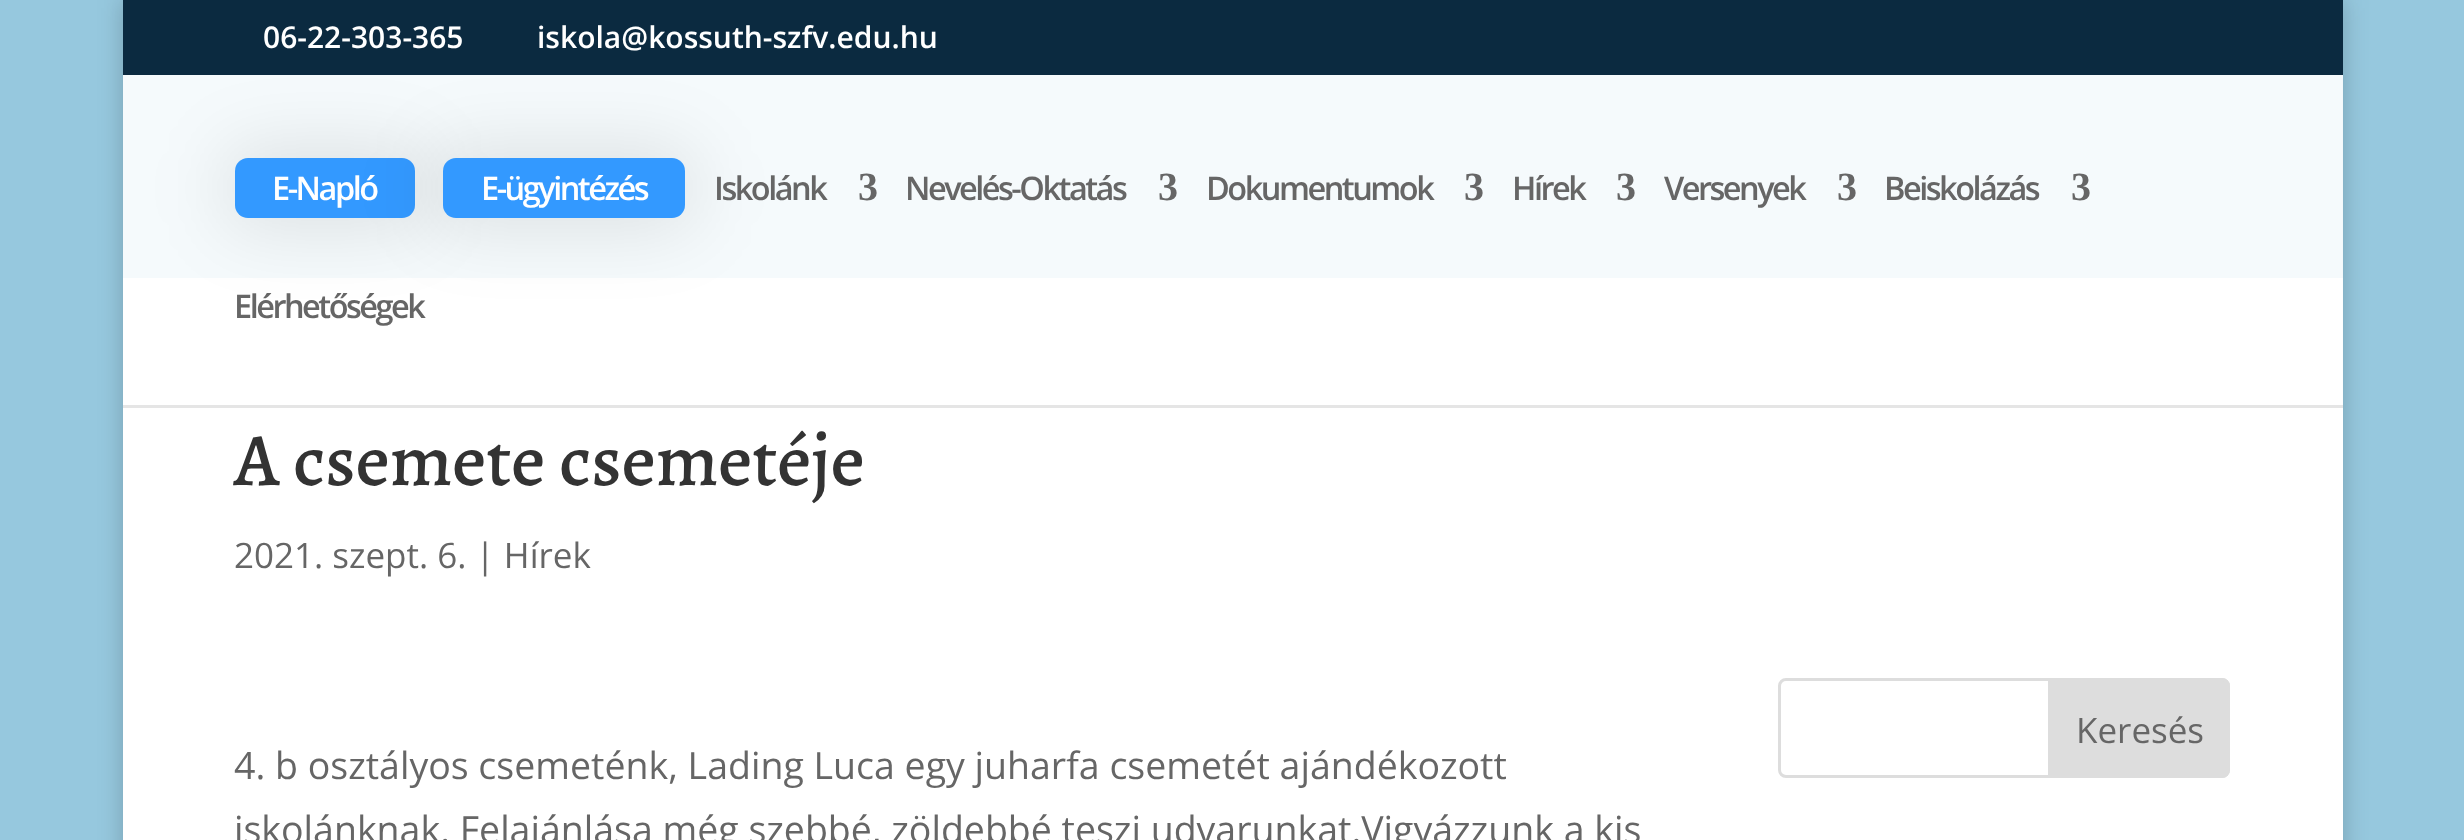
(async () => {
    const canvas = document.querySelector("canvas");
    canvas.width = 2464;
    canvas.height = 840;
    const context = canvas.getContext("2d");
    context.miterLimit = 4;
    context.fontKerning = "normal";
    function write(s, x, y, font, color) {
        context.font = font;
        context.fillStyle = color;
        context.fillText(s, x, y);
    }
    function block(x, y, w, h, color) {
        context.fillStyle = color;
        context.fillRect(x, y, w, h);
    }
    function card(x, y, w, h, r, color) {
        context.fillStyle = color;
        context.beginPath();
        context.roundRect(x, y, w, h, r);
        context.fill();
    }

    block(0, 0, 2464, 840, "rgb(150, 200, 222)");
    context.save();
    context.beginPath();
    context.moveTo(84, 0);
    context.lineTo(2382, 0);
    context.lineTo(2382, 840);
    context.lineTo(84, 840);
    context.closePath();
    context.moveTo(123, 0);
    context.lineTo(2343, 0);
    context.lineTo(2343, 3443);
    context.lineTo(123, 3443);
    context.closePath();
    context.clip("evenodd");
    context.fillStyle = "rgba(0, 0, 0, 0.2)";
    context.filter = "blur(12.5px)";
    context.beginPath();
    context.rect(123, 0, 2220, 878);
    context.fill();
    context.filter = "none";
    context.restore();
    block(123, 278, 2220, 562, "rgb(255, 255, 255)");
    context.fillStyle = "rgba(0, 0, 0, 0.1)";
    context.beginPath();
    context.moveTo(123, 405);
    context.lineTo(123, 408);
    context.lineTo(2343, 408);
    context.lineTo(2343, 78);
    context.lineTo(2342, 78);
    context.lineTo(2342, 405);
    context.closePath();
    context.fill();
    block(123, 75, 2220, 330, "rgba(255, 255, 255, 0.9)");
    context.fillStyle = "rgba(0, 0, 0, 0.1)";
    context.filter = "blur(37.5px)";
    context.beginPath();
    context.roundRect(225, 148, 200, 80, 23);
    context.fill();
    context.filter = "none";
    card(235, 158, 180, 60, 13, "rgb(51, 153, 255)");
    context.fillStyle = "rgba(0, 0, 0, 0.1)";
    context.filter = "blur(37.5px)";
    context.beginPath();
    context.roundRect(433, 148, 262, 80, 23);
    context.fill();
    context.filter = "none";
    block(123, 0, 2220, 75, "rgb(11, 42, 64)");
    write("06-22-303-365", 263, 48, "600 30px Open Sans", "rgb(255, 255, 255)");
    write("iskola@kossuth-szfv.edu.hu", 537, 48, "600 30px Open Sans", "rgb(255, 255, 255)");
    context.letterSpacing = "-2.5px";
    write("E-Napló", 272, 200, "600 32.5px Open Sans", "rgb(255, 255, 255)");
    card(443, 158, 242, 60, 13, "rgb(51, 153, 255)");
    write("E-ügyintézés", 481, 200, "600 32.5px Open Sans", "rgb(255, 255, 255)");
    write("Iskolánk", 714, 200, "600 32.5px Open Sans", "rgb(102, 102, 102)");
    write("3", 858, 200, "bold 40px Liberation Serif", "rgb(102, 102, 102)");
    write("Nevelés-Oktatás", 905, 200, "600 32.5px Open Sans", "rgb(102, 102, 102)");
    write("3", 1158, 200, "bold 40px Liberation Serif", "rgb(102, 102, 102)");
    write("Dokumentumok", 1206, 200, "600 32.5px Open Sans", "rgb(102, 102, 102)");
    write("3", 1464, 200, "bold 40px Liberation Serif", "rgb(102, 102, 102)");
    write("Hírek", 1512, 200, "600 32.5px Open Sans", "rgb(102, 102, 102)");
    write("3", 1616, 200, "bold 40px Liberation Serif", "rgb(102, 102, 102)");
    write("Versenyek", 1664, 200, "600 32.5px Open Sans", "rgb(102, 102, 102)");
    write("3", 1837, 200, "bold 40px Liberation Serif", "rgb(102, 102, 102)");
    write("Beiskolázás", 1884, 200, "600 32.5px Open Sans", "rgb(102, 102, 102)");
    write("3", 2071, 200, "bold 40px Liberation Serif", "rgb(102, 102, 102)");
    write("Elérhetőségek", 234, 318, "600 32.5px Open Sans", "rgb(102, 102, 102)");
    context.letterSpacing = "0px";
    write("A csemete csemetéje", 234, 485, "500 75px Alegreya", "rgb(51, 51, 51)");
    write("2021. szept. 6. | Hírek", 234, 568, "35px Open Sans", "rgb(102, 102, 102)");
    context.beginPath();
    context.roundRect(1779.5, 679.5, 449, 97, 6.5);
    context.strokeStyle = "rgb(221, 221, 221)";
    context.lineWidth = 3;
    context.stroke();
    context.fillStyle = "rgb(221, 221, 221)";
    context.beginPath();
    context.roundRect(2049.5, 679.5, 179, 97, [0, 6.5, 6.5, 0]);
    context.fill();
    context.stroke();
    write("Keresés", 2076, 743, "35px Open Sans", "rgb(102, 102, 102)");
    write("4. b osztályos csemeténk, Lading Luca egy juharfa csemetét ajándékozott", 234, 779, "37.5px Open Sans", "rgb(102, 102, 102)");
    write("iskolánknak. Felajánlása még szebbé, zöldebbé teszi udvarunkat.Vigyázzunk a kis", 234, 843, "37.5px Open Sans", "rgb(102, 102, 102)");
})();
